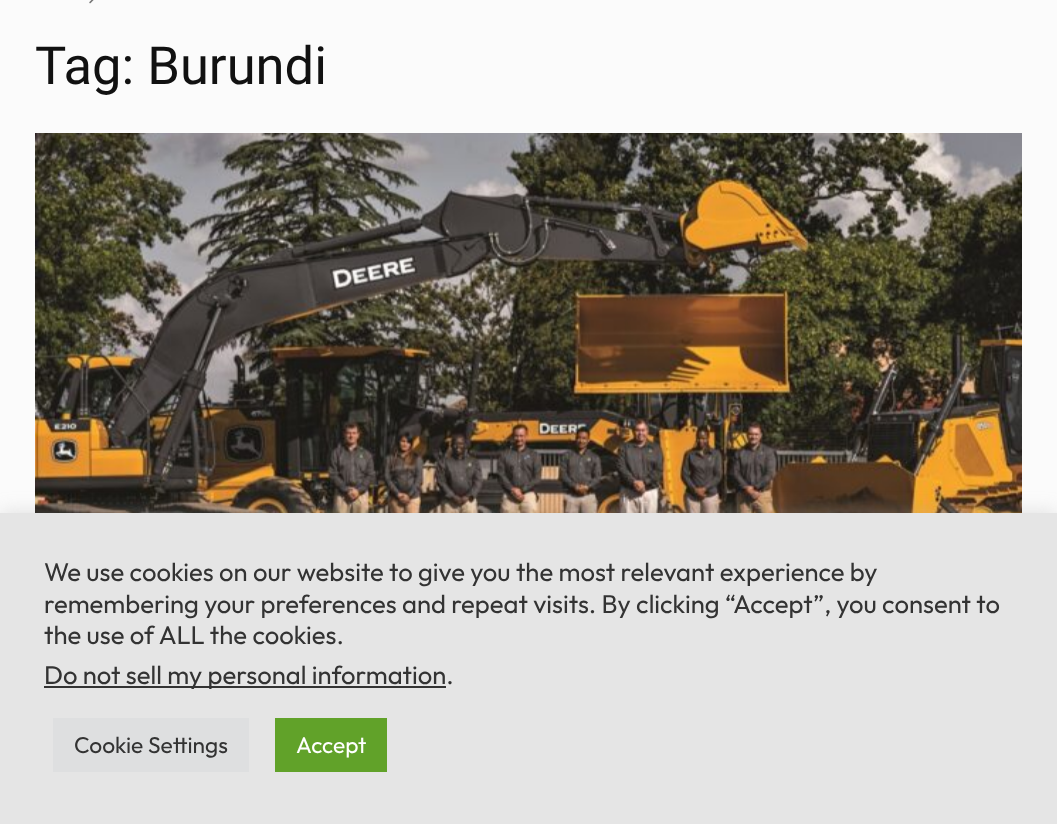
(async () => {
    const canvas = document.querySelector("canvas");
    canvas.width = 1057;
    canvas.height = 824;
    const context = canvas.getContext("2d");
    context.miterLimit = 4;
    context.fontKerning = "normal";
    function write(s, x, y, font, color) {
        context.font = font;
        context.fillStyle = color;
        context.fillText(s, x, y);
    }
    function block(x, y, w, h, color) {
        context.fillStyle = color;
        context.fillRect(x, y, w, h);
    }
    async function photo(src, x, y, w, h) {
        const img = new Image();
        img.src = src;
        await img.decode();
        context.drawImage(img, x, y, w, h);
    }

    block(0, 0, 1057, 824, "rgb(251, 251, 251)");
    await photo("media/1.png", 89, 0, 5, 4);
    write("Tag: Burundi", 35, 84, "52.5px Roboto", "rgb(17, 17, 17)");
    await photo("media/2.png", 35, 133, 987, 380);
    context.fillStyle = "rgba(172, 171, 171, 0.3)";
    context.filter = "blur(9px)";
    context.beginPath();
    context.rect(0, 511, 1057, 312);
    context.fill();
    context.filter = "none";
    block(0, 513, 1057, 311, "rgb(229, 229, 229)");
    write("We use cookies on our website to give you the most relevant experience by", 44, 581, "25.65px Outfit", "rgb(51, 51, 51)");
    write("remembering your preferences and repeat visits. By clicking “Accept”, you consent to", 44, 613, "25.65px Outfit", "rgb(51, 51, 51)");
    write("the use of ALL the cookies.", 44, 644, "25.65px Outfit", "rgb(51, 51, 51)");
    block(44, 686, 402, 2, "rgb(51, 51, 51)");
    write("Do not sell my personal information.", 44, 684, "25.65px Outfit", "rgb(51, 51, 51)");
    block(53, 718, 196, 54, "rgb(222, 223, 224)");
    write("Cookie Settings", 74, 753, "22.75px Outfit", "rgb(51, 51, 51)");
    block(275, 718, 112, 54, "rgb(97, 162, 41)");
    write("Accept", 296, 753, "22.75px Outfit", "rgb(255, 255, 255)");
})();
